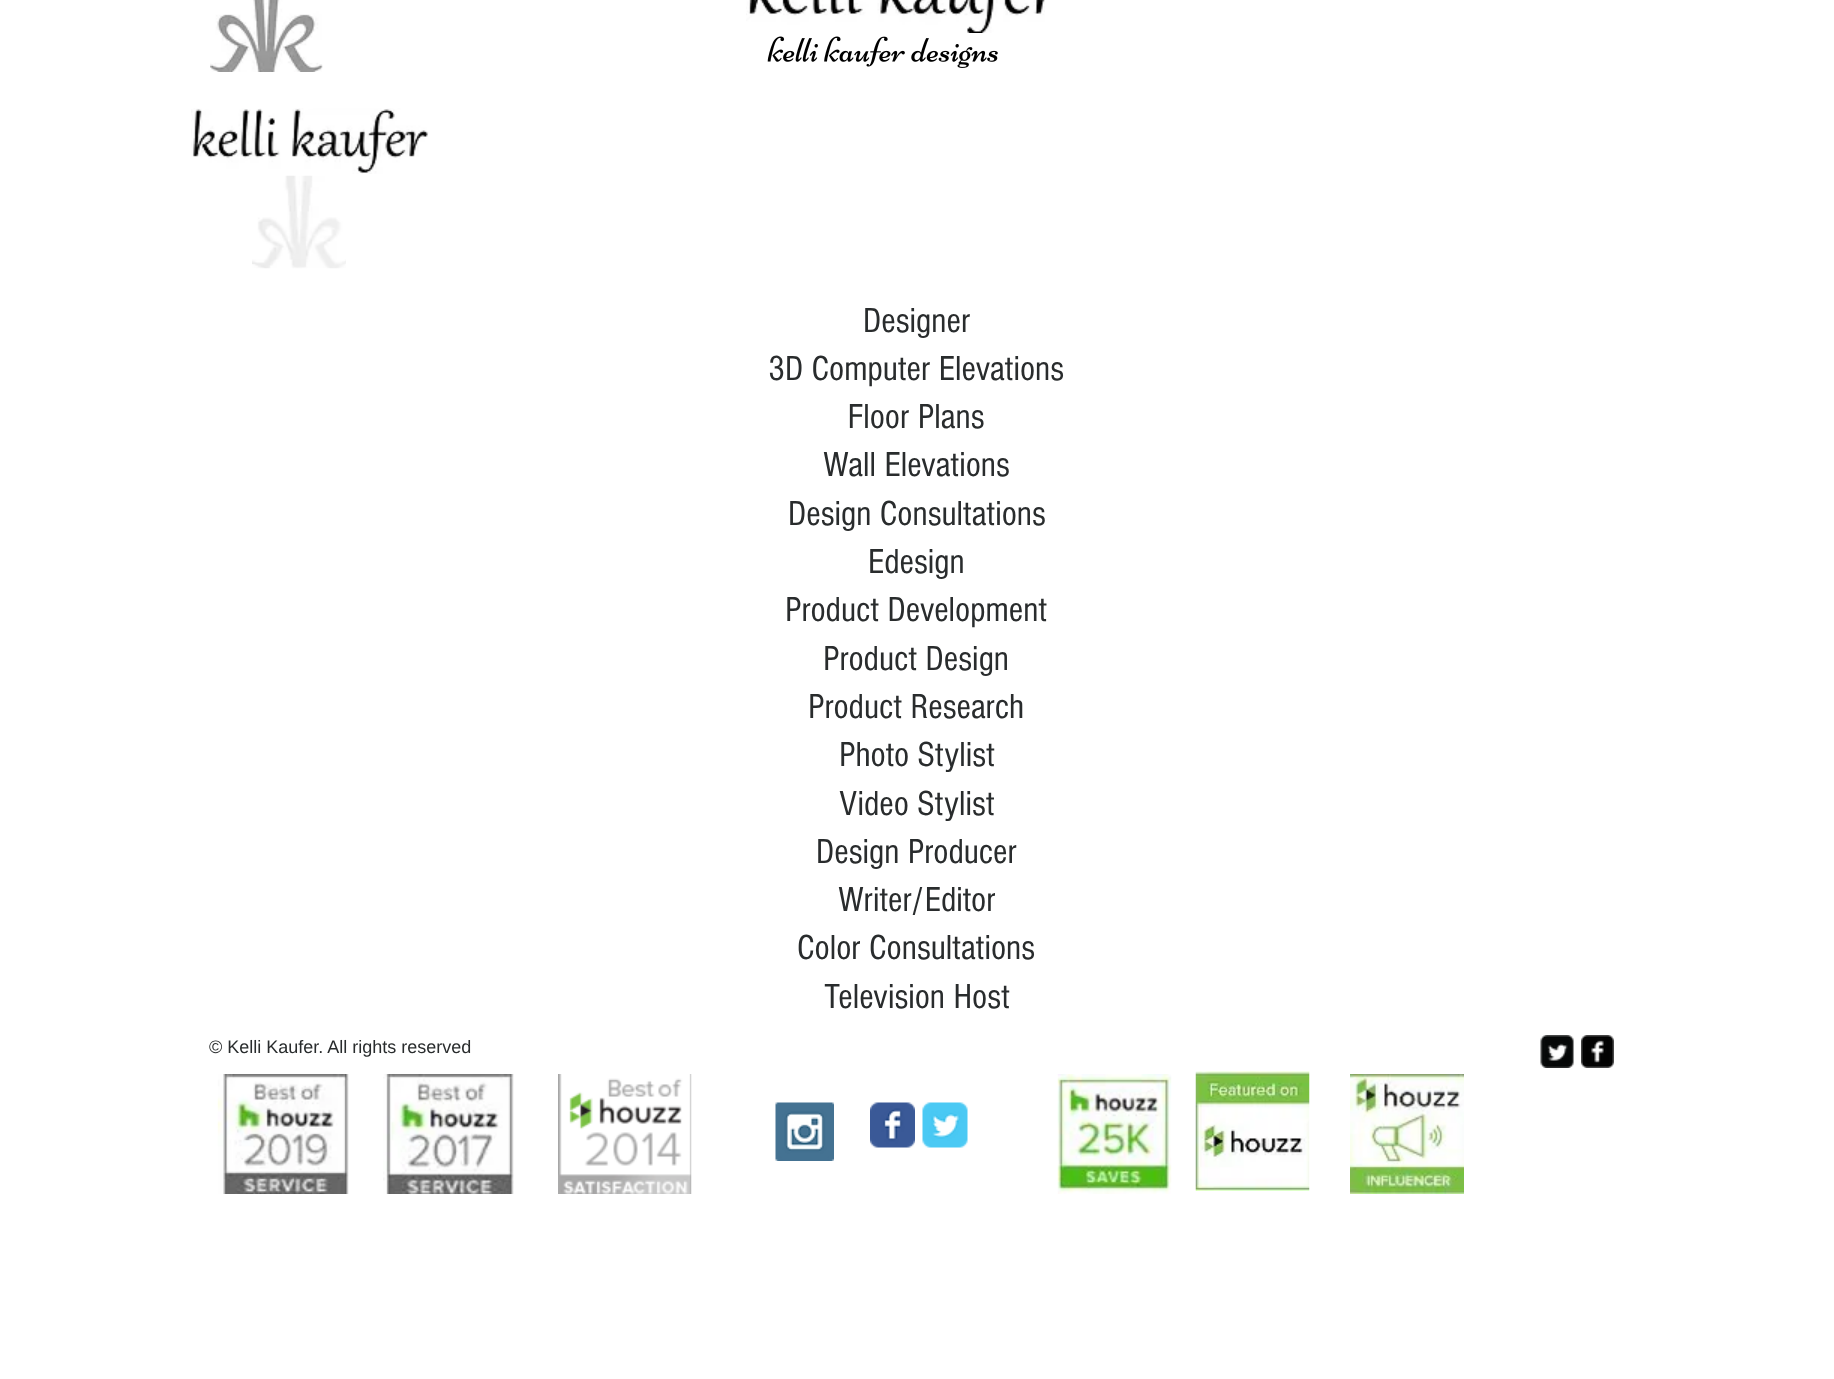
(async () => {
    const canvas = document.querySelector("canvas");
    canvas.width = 1834;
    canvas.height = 1379;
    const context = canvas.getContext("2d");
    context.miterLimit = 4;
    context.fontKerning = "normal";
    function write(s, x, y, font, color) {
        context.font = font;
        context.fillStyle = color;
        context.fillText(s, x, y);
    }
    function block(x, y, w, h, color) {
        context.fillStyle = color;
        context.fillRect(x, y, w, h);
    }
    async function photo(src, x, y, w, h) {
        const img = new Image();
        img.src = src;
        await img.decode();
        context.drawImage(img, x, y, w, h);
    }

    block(0, 0, 1834, 1379, "rgb(255, 255, 255)");
    await photo("media/1.png", 210, 0, 113, 72);
    await photo("media/2.png", 746, 0, 299, 33);
    await photo("media/3.png", 767, 36, 231, 32);
    await photo("media/4.png", 191, 108, 238, 66);
    await photo("media/5.png", 252, 175, 94, 94);
    write("Designer", 863, 332, "36px 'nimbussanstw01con'", "rgb(41, 44, 45)");
    write("3D Computer Elevations", 768, 380, "36px 'nimbussanstw01con'", "rgb(41, 44, 45)");
    write("Floor Plans", 848, 428, "36px 'nimbussanstw01con'", "rgb(41, 44, 45)");
    write("Wall Elevations", 823, 476, "36px 'nimbussanstw01con'", "rgb(41, 44, 45)");
    write("Design Consultations", 788, 525, "36px 'nimbussanstw01con'", "rgb(41, 44, 45)");
    write("Edesign", 868, 573, "36px 'nimbussanstw01con'", "rgb(41, 44, 45)");
    write("Product Development", 785, 621, "36px 'nimbussanstw01con'", "rgb(41, 44, 45)");
    write("Product Design", 823, 670, "36px 'nimbussanstw01con'", "rgb(41, 44, 45)");
    write("Product Research", 808, 718, "36px 'nimbussanstw01con'", "rgb(41, 44, 45)");
    write("Photo Stylist", 839, 766, "36px 'nimbussanstw01con'", "rgb(41, 44, 45)");
    write("Video Stylist", 839, 815, "36px 'nimbussanstw01con'", "rgb(41, 44, 45)");
    write("Design Producer", 816, 863, "36px 'nimbussanstw01con'", "rgb(41, 44, 45)");
    write("Writer/Editor", 838, 911, "36px 'nimbussanstw01con'", "rgb(41, 44, 45)");
    write("Color Consultations", 797, 959, "36px 'nimbussanstw01con'", "rgb(41, 44, 45)");
    write("Television Host", 824, 1008, "36px 'nimbussanstw01con'", "rgb(41, 44, 45)");
    write("© Kelli Kaufer. All rights reserved", 209, 1053, "18px Liberation Sans", "rgb(41, 44, 45)");
    await photo("media/6.png", 1540, 1035, 34, 33);
    await photo("media/7.png", 1581, 1035, 33, 33);
    await photo("media/8.png", 217, 1074, 132, 120);
    await photo("media/9.png", 383, 1074, 131, 120);
    await photo("media/10.png", 558, 1074, 134, 120);
    await photo("media/11.png", 775, 1102, 59, 59);
    await photo("media/12.png", 870, 1102, 45, 46);
    await photo("media/13.png", 922, 1102, 46, 46);
    await photo("media/14.png", 1057, 1074, 115, 120);
    await photo("media/15.png", 1195, 1071, 115, 120);
    await photo("media/16.png", 1350, 1074, 114, 120);
})();
